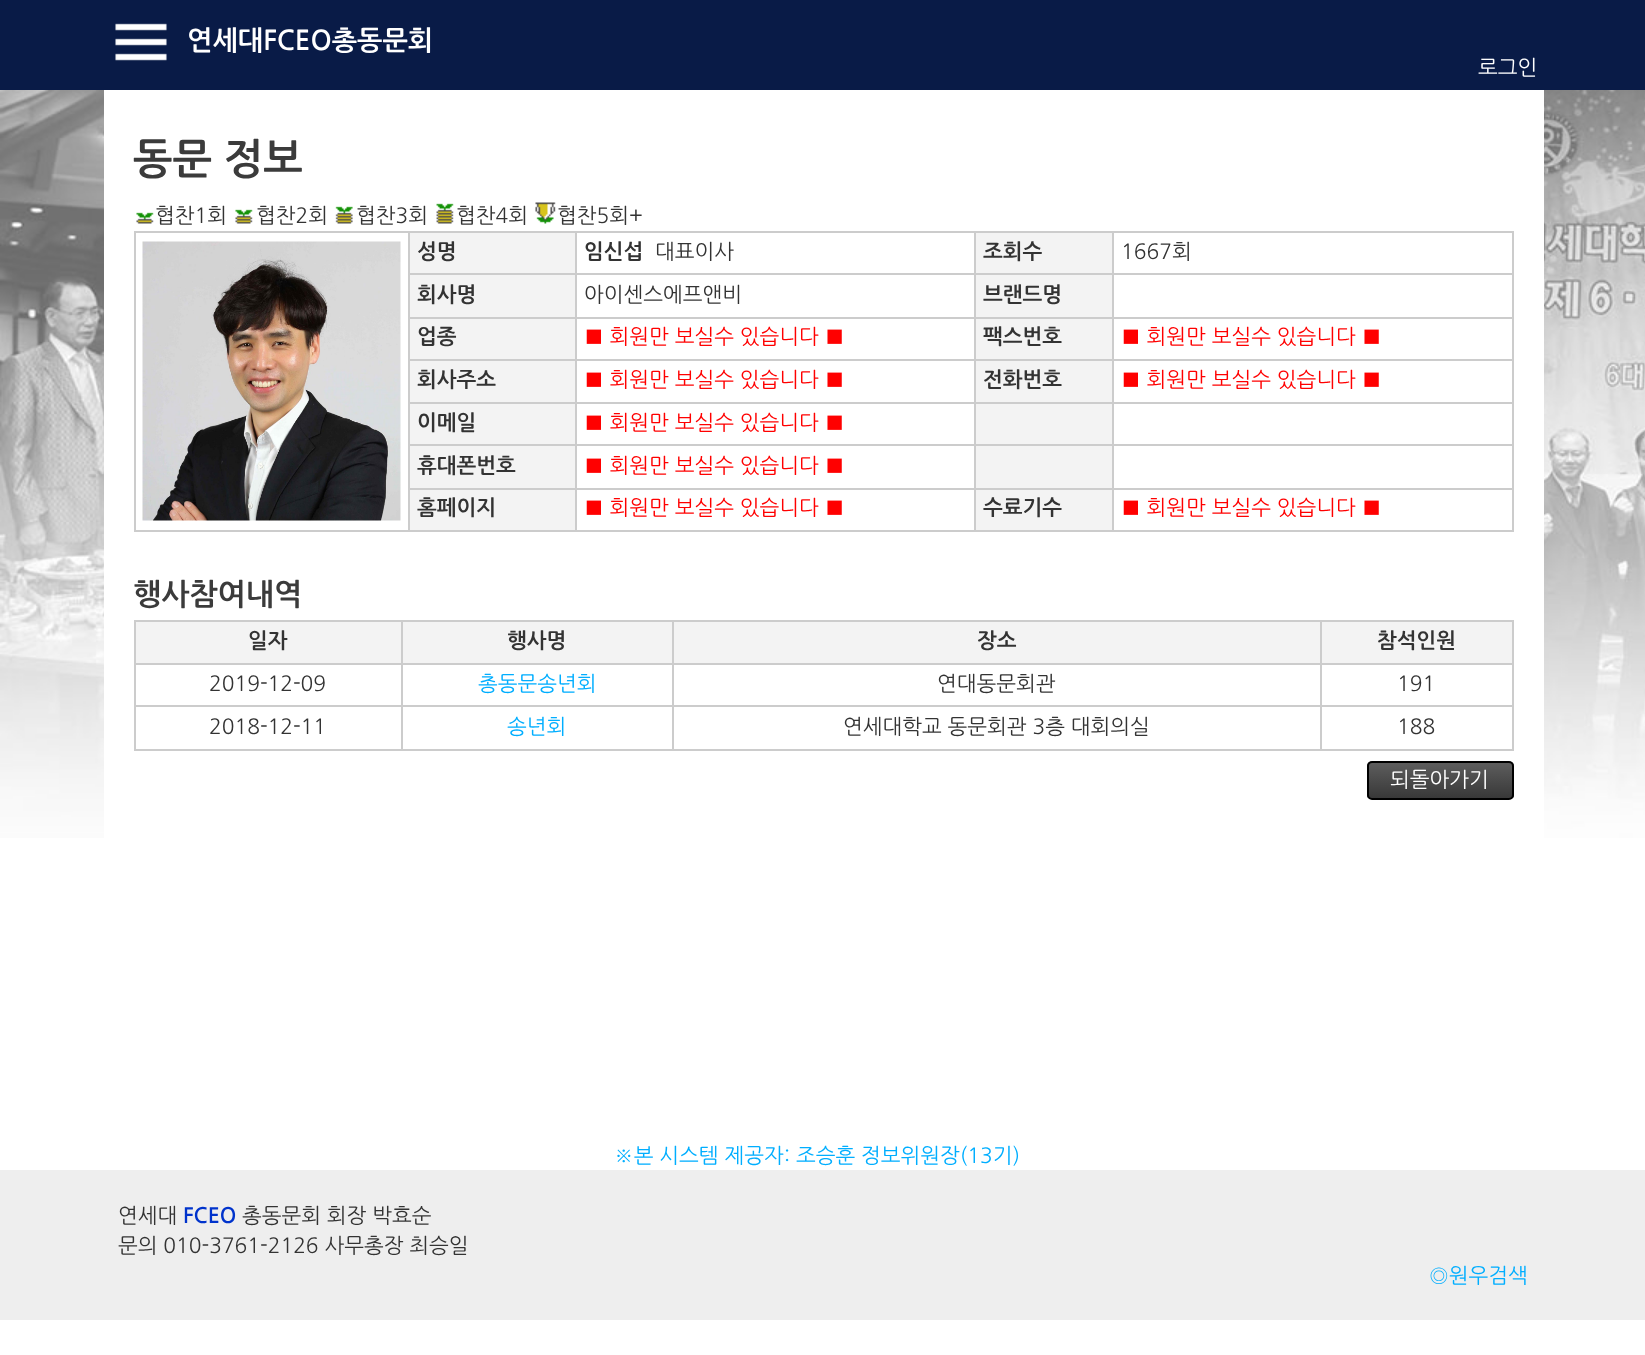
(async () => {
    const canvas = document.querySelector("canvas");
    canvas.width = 1645;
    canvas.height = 1355;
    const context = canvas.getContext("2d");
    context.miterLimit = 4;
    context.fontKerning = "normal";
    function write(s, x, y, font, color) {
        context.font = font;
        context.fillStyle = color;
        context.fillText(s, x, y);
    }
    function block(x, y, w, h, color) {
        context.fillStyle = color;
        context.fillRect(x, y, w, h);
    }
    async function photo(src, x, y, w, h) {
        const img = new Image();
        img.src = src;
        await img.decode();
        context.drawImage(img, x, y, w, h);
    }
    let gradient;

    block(0, 0, 1645, 1355, "rgb(255, 255, 255)");
    block(0, 0, 1645, 90, "rgb(9, 27, 71)");
    await photo("media/1.png", 115, 23, 52, 38);
    write("연세대FCEO총동문회", 187, 50, "bold 27px NanumGothic", "rgb(255, 255, 255)");
    write("로그인", 1478, 75, "21px NanumGothic", "rgb(255, 255, 255)");
    await photo("media/2.png", 0, 90, 1645, 748);
    block(104, 90, 1440, 748, "rgb(255, 255, 255)");
    write("동문 정보", 133, 174, "bold 42px NanumGothic", "rgb(59, 59, 59)");
    await photo("media/3.png", 136, 212, 18, 12);
    write("협찬1회", 155, 223, "21px NanumGothic", "rgb(51, 51, 51)");
    await photo("media/4.png", 235, 209, 18, 15);
    write("협찬2회", 256, 223, "21px NanumGothic", "rgb(51, 51, 51)");
    await photo("media/5.png", 335, 206, 18, 18);
    write("협찬3회", 356, 223, "21px NanumGothic", "rgb(51, 51, 51)");
    await photo("media/6.png", 436, 203, 18, 21);
    write("협찬4회", 456, 223, "21px NanumGothic", "rgb(51, 51, 51)");
    await photo("media/7.png", 535, 202, 21, 22);
    write("협찬5회+", 557, 223, "21px NanumGothic", "rgb(51, 51, 51)");
    block(134, 231, 1380, 2, "rgb(204, 204, 204)");
    block(1512, 231, 2, 300, "rgb(204, 204, 204)");
    block(134, 530, 1380, 2, "rgb(204, 204, 204)");
    block(134, 231, 2, 300, "rgb(204, 204, 204)");
    await photo("media/8.png", 142, 241, 259, 280);
    block(410, 233, 165, 40, "rgb(243, 243, 243)");
    write("성명", 417, 259, "bold 21px NanumGothic", "rgb(51, 51, 51)");
    block(1112, 273, 402, 2, "rgb(204, 204, 204)");
    block(1112, 317, 402, 2, "rgb(204, 204, 204)");
    block(1112, 359, 402, 2, "rgb(204, 204, 204)");
    block(1112, 402, 402, 2, "rgb(204, 204, 204)");
    block(1112, 444, 402, 2, "rgb(204, 204, 204)");
    block(1112, 488, 402, 2, "rgb(204, 204, 204)");
    block(1112, 488, 2, 43, "rgb(204, 204, 204)");
    block(974, 488, 139, 2, "rgb(204, 204, 204)");
    block(1112, 444, 2, 45, "rgb(204, 204, 204)");
    block(974, 444, 139, 2, "rgb(204, 204, 204)");
    block(1112, 402, 2, 44, "rgb(204, 204, 204)");
    block(974, 402, 139, 2, "rgb(204, 204, 204)");
    block(1112, 359, 2, 45, "rgb(204, 204, 204)");
    block(974, 359, 139, 2, "rgb(204, 204, 204)");
    block(1112, 317, 2, 43, "rgb(204, 204, 204)");
    block(974, 317, 139, 2, "rgb(204, 204, 204)");
    block(1112, 273, 2, 45, "rgb(204, 204, 204)");
    block(974, 273, 139, 2, "rgb(204, 204, 204)");
    block(974, 488, 2, 43, "rgb(204, 204, 204)");
    block(575, 488, 400, 2, "rgb(204, 204, 204)");
    block(974, 444, 2, 45, "rgb(204, 204, 204)");
    block(575, 444, 400, 2, "rgb(204, 204, 204)");
    block(974, 402, 2, 44, "rgb(204, 204, 204)");
    block(575, 402, 400, 2, "rgb(204, 204, 204)");
    block(974, 359, 2, 45, "rgb(204, 204, 204)");
    block(575, 359, 400, 2, "rgb(204, 204, 204)");
    block(974, 317, 2, 43, "rgb(204, 204, 204)");
    block(575, 317, 400, 2, "rgb(204, 204, 204)");
    block(974, 273, 2, 45, "rgb(204, 204, 204)");
    block(575, 273, 400, 2, "rgb(204, 204, 204)");
    block(575, 488, 2, 43, "rgb(204, 204, 204)");
    block(408, 488, 168, 2, "rgb(204, 204, 204)");
    block(575, 444, 2, 45, "rgb(204, 204, 204)");
    block(408, 444, 168, 2, "rgb(204, 204, 204)");
    block(575, 402, 2, 44, "rgb(204, 204, 204)");
    block(408, 402, 168, 2, "rgb(204, 204, 204)");
    block(575, 359, 2, 45, "rgb(204, 204, 204)");
    block(408, 359, 168, 2, "rgb(204, 204, 204)");
    block(575, 317, 2, 43, "rgb(204, 204, 204)");
    block(408, 317, 168, 2, "rgb(204, 204, 204)");
    block(575, 273, 2, 45, "rgb(204, 204, 204)");
    block(408, 273, 168, 2, "rgb(204, 204, 204)");
    block(575, 231, 2, 44, "rgb(204, 204, 204)");
    write("임신섭", 584, 259, "bold 21px NanumGothic", "rgb(51, 51, 51)");
    write("대표이사", 655, 259, "21px NanumGothic", "rgb(51, 51, 51)");
    block(976, 233, 136, 40, "rgb(243, 243, 243)");
    block(974, 231, 2, 44, "rgb(204, 204, 204)");
    write("조회수", 983, 259, "bold 21px NanumGothic", "rgb(51, 51, 51)");
    block(1112, 231, 2, 44, "rgb(204, 204, 204)");
    write("1667회", 1121, 259, "21px NanumGothic", "rgb(51, 51, 51)");
    block(410, 275, 165, 42, "rgb(243, 243, 243)");
    block(408, 488, 2, 43, "rgb(204, 204, 204)");
    block(408, 444, 2, 45, "rgb(204, 204, 204)");
    block(408, 402, 2, 44, "rgb(204, 204, 204)");
    block(408, 359, 2, 45, "rgb(204, 204, 204)");
    block(408, 317, 2, 43, "rgb(204, 204, 204)");
    block(408, 231, 2, 87, "rgb(204, 204, 204)");
    write("회사명", 417, 302, "bold 21px NanumGothic", "rgb(51, 51, 51)");
    write("아이센스에프앤비", 584, 302, "21px NanumGothic", "rgb(51, 51, 51)");
    block(976, 275, 136, 42, "rgb(243, 243, 243)");
    write("브랜드명", 983, 302, "bold 21px NanumGothic", "rgb(51, 51, 51)");
    block(410, 319, 165, 40, "rgb(243, 243, 243)");
    write("업종", 417, 344, "bold 21px NanumGothic", "rgb(51, 51, 51)");
    write("■ 회원만 보실수 있습니다 ■", 584, 344, "21px NanumGothic", "rgb(255, 0, 0)");
    block(976, 319, 136, 40, "rgb(243, 243, 243)");
    write("팩스번호", 983, 344, "bold 21px NanumGothic", "rgb(51, 51, 51)");
    write("■ 회원만 보실수 있습니다 ■", 1121, 344, "21px NanumGothic", "rgb(255, 0, 0)");
    block(410, 361, 165, 41, "rgb(243, 243, 243)");
    write("회사주소", 417, 387, "bold 21px NanumGothic", "rgb(51, 51, 51)");
    write("■ 회원만 보실수 있습니다 ■", 584, 387, "21px NanumGothic", "rgb(255, 0, 0)");
    block(976, 361, 136, 41, "rgb(243, 243, 243)");
    write("전화번호", 983, 387, "bold 21px NanumGothic", "rgb(51, 51, 51)");
    write("■ 회원만 보실수 있습니다 ■", 1121, 387, "21px NanumGothic", "rgb(255, 0, 0)");
    block(410, 404, 165, 40, "rgb(243, 243, 243)");
    write("이메일", 417, 430, "bold 21px NanumGothic", "rgb(51, 51, 51)");
    write("■ 회원만 보실수 있습니다 ■", 584, 430, "21px NanumGothic", "rgb(255, 0, 0)");
    block(976, 404, 136, 40, "rgb(243, 243, 243)");
    block(410, 446, 165, 42, "rgb(243, 243, 243)");
    write("휴대폰번호", 417, 473, "bold 21px NanumGothic", "rgb(51, 51, 51)");
    write("■ 회원만 보실수 있습니다 ■", 584, 473, "21px NanumGothic", "rgb(255, 0, 0)");
    block(976, 446, 136, 42, "rgb(243, 243, 243)");
    block(410, 490, 165, 40, "rgb(243, 243, 243)");
    write("홈페이지", 417, 515, "bold 21px NanumGothic", "rgb(51, 51, 51)");
    write("■ 회원만 보실수 있습니다 ■", 584, 515, "21px NanumGothic", "rgb(255, 0, 0)");
    block(976, 490, 136, 40, "rgb(243, 243, 243)");
    write("수료기수", 983, 515, "bold 21px NanumGothic", "rgb(51, 51, 51)");
    write("■ 회원만 보실수 있습니다 ■", 1121, 515, "21px NanumGothic", "rgb(255, 0, 0)");
    write("행사참여내역", 133, 605, "bold 30px NanumGothic", "rgb(59, 59, 59)");
    block(134, 620, 1380, 2, "rgb(204, 204, 204)");
    block(1512, 620, 2, 130, "rgb(204, 204, 204)");
    block(134, 749, 1380, 2, "rgb(204, 204, 204)");
    block(134, 620, 2, 130, "rgb(204, 204, 204)");
    block(136, 622, 265, 41, "rgb(243, 243, 243)");
    write("일자", 248, 648, "bold 21px NanumGothic", "rgb(51, 51, 51)");
    block(403, 622, 269, 41, "rgb(243, 243, 243)");
    block(1320, 663, 194, 2, "rgb(204, 204, 204)");
    block(1320, 705, 194, 2, "rgb(204, 204, 204)");
    block(1320, 705, 2, 45, "rgb(204, 204, 204)");
    block(672, 705, 650, 2, "rgb(204, 204, 204)");
    block(1320, 663, 2, 44, "rgb(204, 204, 204)");
    block(672, 663, 650, 2, "rgb(204, 204, 204)");
    block(672, 705, 2, 45, "rgb(204, 204, 204)");
    block(401, 705, 273, 2, "rgb(204, 204, 204)");
    block(672, 663, 2, 44, "rgb(204, 204, 204)");
    block(401, 663, 273, 2, "rgb(204, 204, 204)");
    block(401, 705, 2, 45, "rgb(204, 204, 204)");
    block(134, 705, 268, 2, "rgb(204, 204, 204)");
    block(401, 663, 2, 44, "rgb(204, 204, 204)");
    block(134, 663, 268, 2, "rgb(204, 204, 204)");
    block(401, 620, 2, 45, "rgb(204, 204, 204)");
    write("행사명", 507, 648, "bold 21px NanumGothic", "rgb(51, 51, 51)");
    block(674, 622, 646, 41, "rgb(243, 243, 243)");
    block(672, 620, 2, 45, "rgb(204, 204, 204)");
    write("장소", 977, 648, "bold 21px NanumGothic", "rgb(51, 51, 51)");
    block(1322, 622, 190, 41, "rgb(243, 243, 243)");
    block(1320, 620, 2, 45, "rgb(204, 204, 204)");
    write("참석인원", 1377, 648, "bold 21px NanumGothic", "rgb(51, 51, 51)");
    write("2019-12-09", 209, 691, "21px NanumGothic", "rgb(51, 51, 51)");
    write("총동문송년회", 478, 691, "21px NanumGothic", "rgb(0, 174, 255)");
    write("연대동문회관", 937, 691, "21px NanumGothic", "rgb(51, 51, 51)");
    write("191", 1397, 691, "21px NanumGothic", "rgb(51, 51, 51)");
    write("2018-12-11", 209, 734, "21px NanumGothic", "rgb(51, 51, 51)");
    write("송년회", 507, 734, "21px NanumGothic", "rgb(0, 174, 255)");
    write("연세대학교 동문회관 3층 대회의실", 843, 734, "21px NanumGothic", "rgb(51, 51, 51)");
    write("188", 1397, 734, "21px NanumGothic", "rgb(51, 51, 51)");
    context.save();
    context.beginPath();
    context.roundRect(1367, 761, 147, 39, 5);
    context.clip();
    gradient = context.createLinearGradient(1440, 762, 1440, 798);
    gradient.addColorStop(0, "rgb(94, 94, 94)");
    gradient.addColorStop(1, "rgb(56, 56, 56)");
    context.fillStyle = gradient;
    context.fillRect(1367, 762, 147, 36);
    context.restore();
    context.beginPath();
    context.roundRect(1368, 762, 145, 37, 4);
    context.strokeStyle = "rgb(0, 0, 0)";
    context.lineWidth = 2;
    context.stroke();
    write("되돌아가기", 1390, 787, "21px NanumGothic", "rgb(255, 255, 255)");
    write("※본 시스템 제공자: 조승훈 정보위원장(13기)", 614, 1163, "21px NanumGothic", "rgb(0, 174, 255)");
    block(0, 1170, 1645, 150, "rgb(238, 238, 238)");
    write("연세대", 118, 1223, "21px NanumGothic", "rgb(51, 51, 51)");
    write("FCEO", 183, 1223, "bold 21px NanumGothic", "rgb(0, 51, 204)");
    write("총동문회 회장 박효순", 242, 1223, "21px NanumGothic", "rgb(51, 51, 51)");
    write("문의 010-3761-2126 사무총장 최승일", 118, 1253, "21px NanumGothic", "rgb(51, 51, 51)");
    write("◎원우검색", 1429, 1283, "21px NanumGothic", "rgb(0, 174, 255)");
})();
